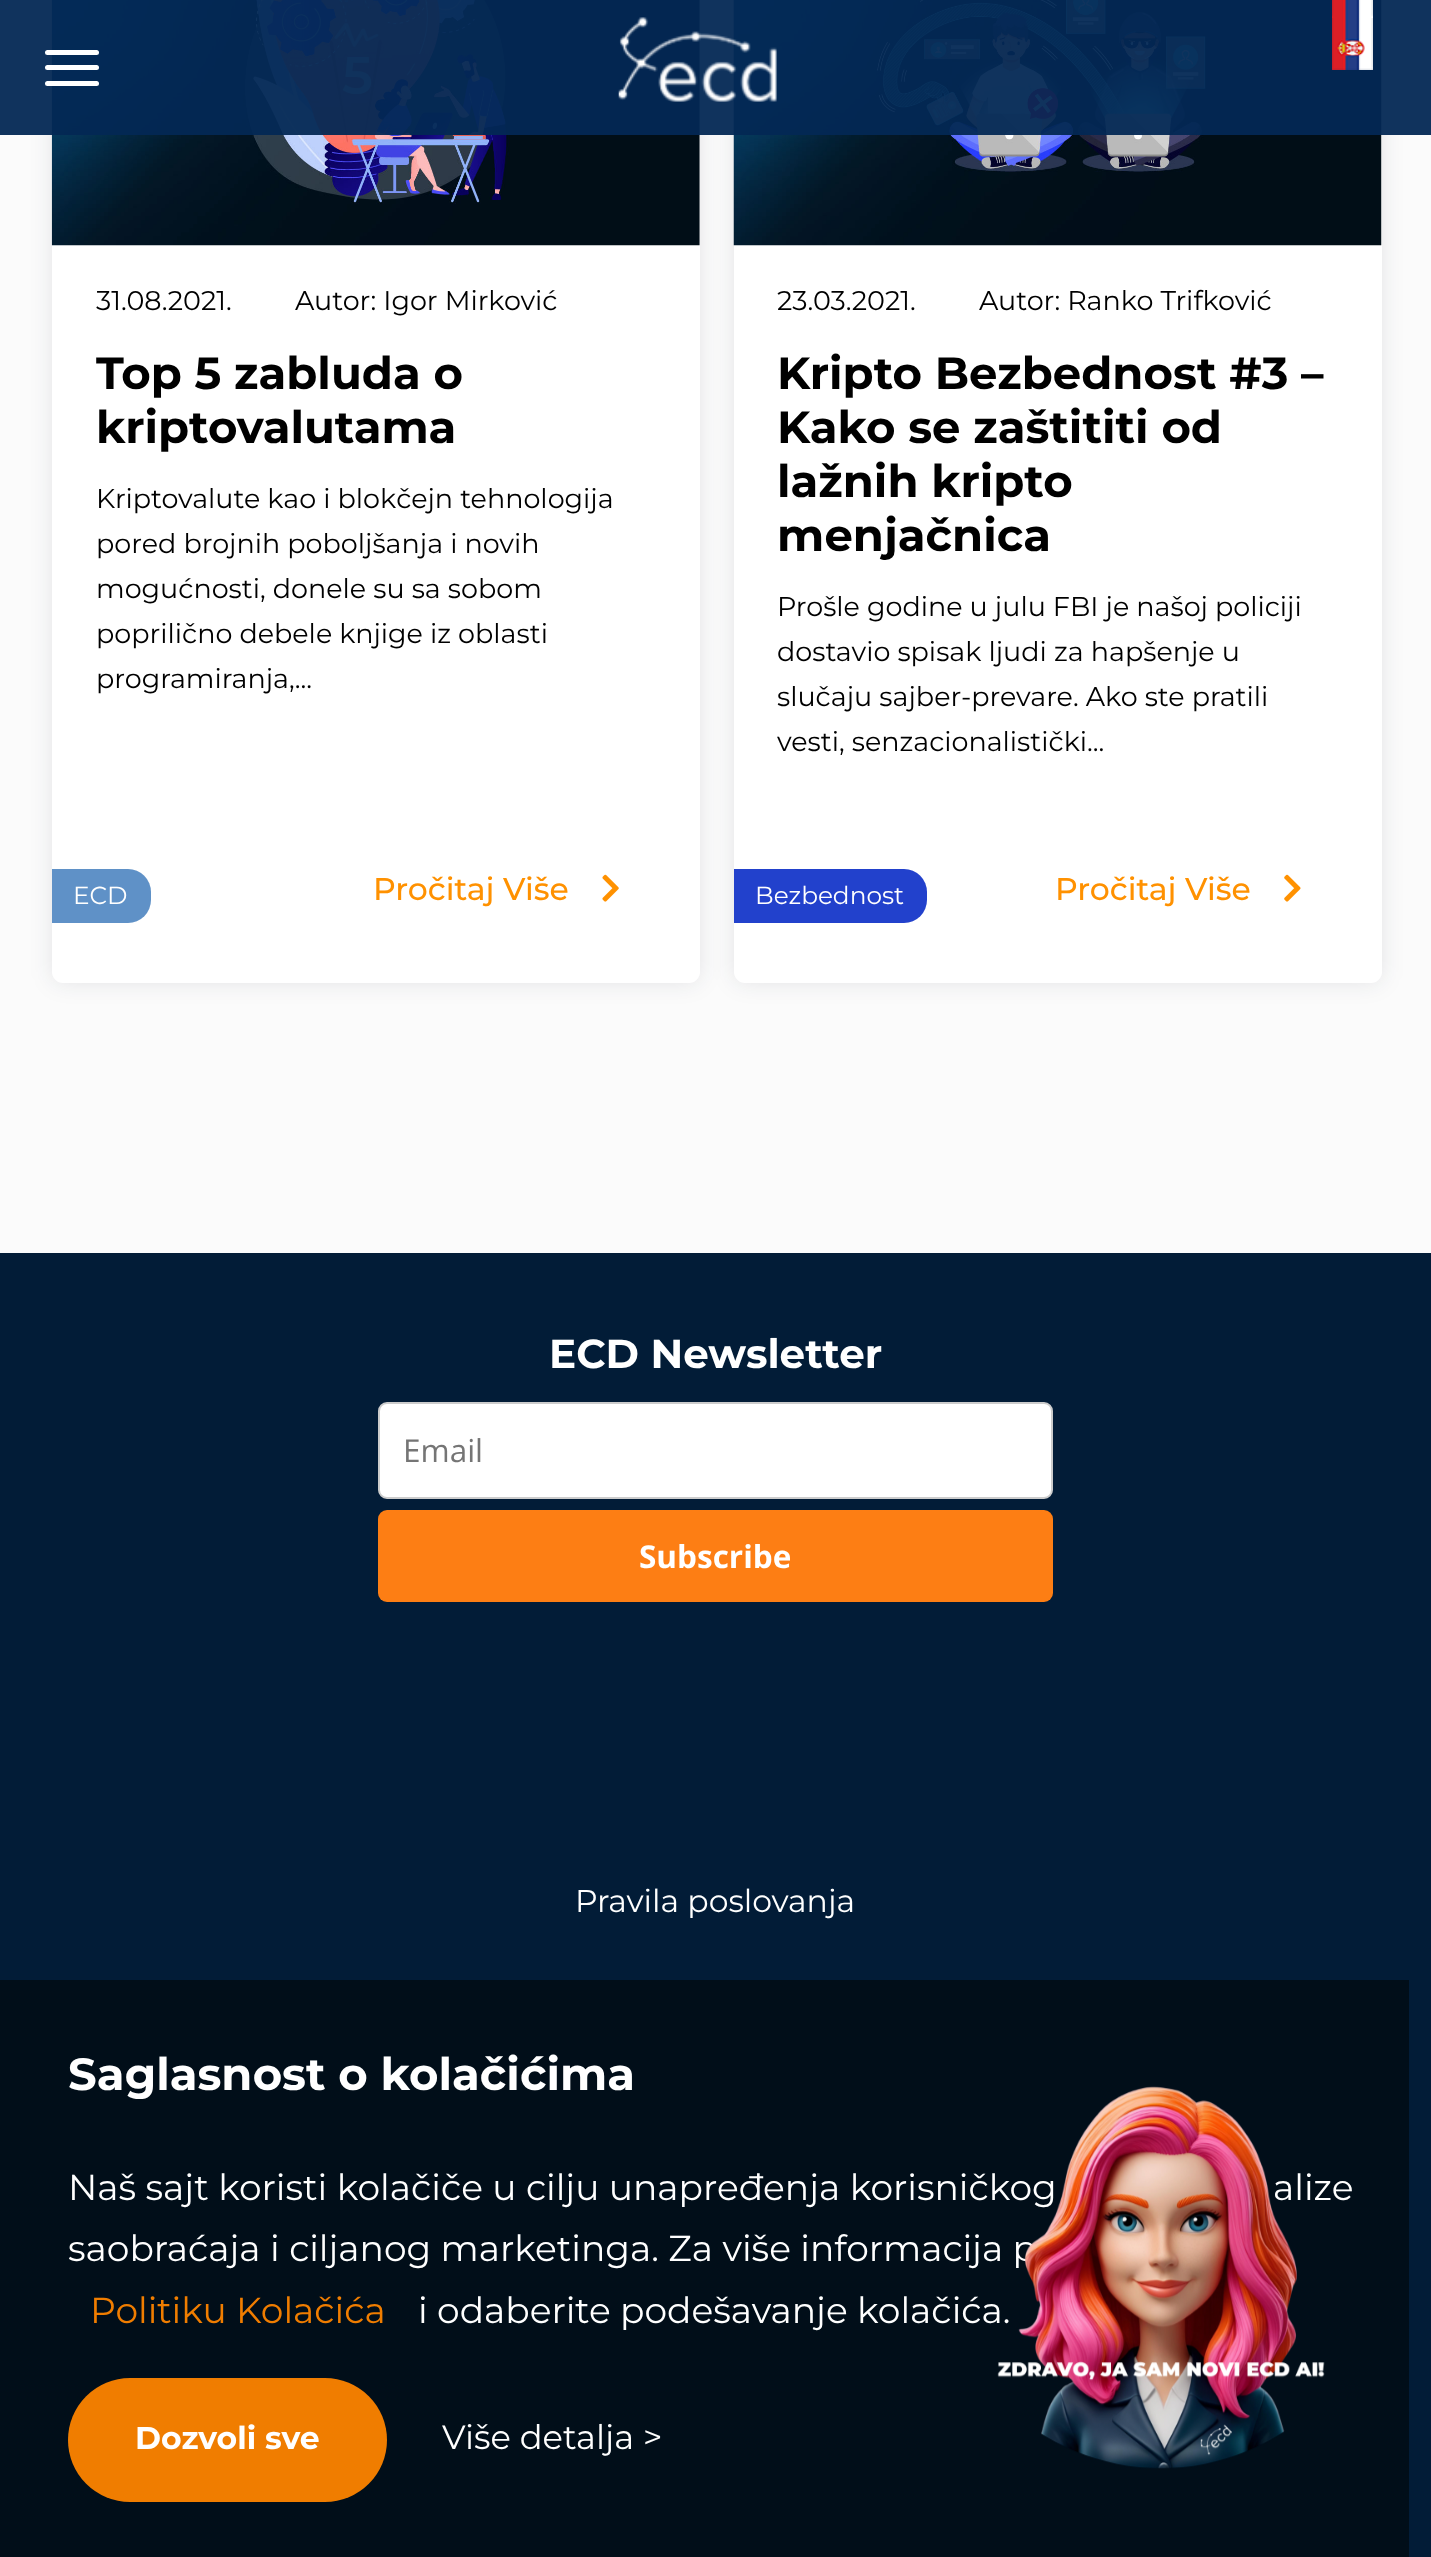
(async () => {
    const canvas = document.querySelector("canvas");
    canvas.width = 1431;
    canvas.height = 2557;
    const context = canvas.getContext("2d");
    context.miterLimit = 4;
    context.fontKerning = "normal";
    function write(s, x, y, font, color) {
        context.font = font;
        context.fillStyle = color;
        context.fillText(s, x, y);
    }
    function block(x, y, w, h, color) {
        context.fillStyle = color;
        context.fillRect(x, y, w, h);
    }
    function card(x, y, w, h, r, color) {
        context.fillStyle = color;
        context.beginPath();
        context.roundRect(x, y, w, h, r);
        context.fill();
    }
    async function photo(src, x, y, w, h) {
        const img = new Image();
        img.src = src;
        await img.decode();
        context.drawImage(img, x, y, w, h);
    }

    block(0, 0, 1431, 2557, "rgb(251, 251, 251)");
    context.fillStyle = "rgba(17, 34, 50, 0.1)";
    context.filter = "blur(11px)";
    context.beginPath();
    context.roundRect(52, -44, 648, 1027, 11);
    context.fill();
    context.filter = "none";
    card(52, -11, 648, 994, 11, "rgb(255, 255, 255)");
    await photo("media/3.png", 51, 0, 649, 246);
    context.fillStyle = "rgba(17, 34, 50, 0.1)";
    context.filter = "blur(11px)";
    context.beginPath();
    context.roundRect(734, -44, 648, 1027, 11);
    context.fill();
    context.filter = "none";
    card(734, -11, 648, 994, 11, "rgb(255, 255, 255)");
    await photo("media/5.png", 733, 0, 649, 246);
    block(0, 0, 1431, 135, "rgba(3, 40, 84, 0.95)");
    card(45, 50, 54, 5, 2.5, "rgb(255, 255, 255)");
    card(45, 65, 54, 5, 2.5, "rgb(255, 255, 255)");
    card(45, 81, 54, 5, 2.5, "rgb(255, 255, 255)");
    await photo("media/1.png", 618, 17, 159, 85);
    await photo("media/2.png", 1332, 0, 41, 70);
    write("31.08.2021.", 96, 310, "27px Montserrat", "rgb(0, 0, 0)");
    write("Autor: Igor Mirković", 295, 310, "27px Montserrat", "rgb(0, 0, 0)");
    write("Top 5 zabluda o", 96, 389, "bold 45px Montserrat", "rgb(0, 0, 0)");
    write("kriptovalutama", 96, 443, "bold 45px Montserrat", "rgb(0, 0, 0)");
    write("Kriptovalute kao i blokčejn tehnologija", 96, 508, "27px Montserrat", "rgb(0, 0, 0)");
    write("pored brojnih poboljšanja i novih", 96, 553, "27px Montserrat", "rgb(0, 0, 0)");
    write("mogućnosti, donele su sa sobom", 96, 598, "27px Montserrat", "rgb(0, 0, 0)");
    write("poprilično debele knjige iz oblasti", 96, 643, "27px Montserrat", "rgb(0, 0, 0)");
    write("programiranja,...", 96, 688, "27px Montserrat", "rgb(0, 0, 0)");
    context.fillStyle = "rgb(95, 145, 199)";
    context.beginPath();
    context.roundRect(52, 869, 99, 54, [0, 23, 23, 0]);
    context.fill();
    write("ECD", 73, 904, "24.75px Montserrat", "rgb(255, 255, 255)");
    write("Pročitaj Više", 373, 900, "500 31.5px Montserrat", "rgb(255, 145, 0)");
    await photo("media/4.png", 602, 874, 17, 28);
    write("23.03.2021.", 777, 310, "27px Montserrat", "rgb(0, 0, 0)");
    write("Autor: Ranko Trifković", 979, 310, "27px Montserrat", "rgb(0, 0, 0)");
    write("Kripto Bezbednost #3 –", 777, 389, "bold 45px Montserrat", "rgb(0, 0, 0)");
    write("Kako se zaštititi od", 777, 443, "bold 45px Montserrat", "rgb(0, 0, 0)");
    write("lažnih kripto", 777, 497, "bold 45px Montserrat", "rgb(0, 0, 0)");
    write("menjačnica", 777, 551, "bold 45px Montserrat", "rgb(0, 0, 0)");
    write("Prošle godine u julu FBI je našoj policiji", 777, 616, "27px Montserrat", "rgb(0, 0, 0)");
    write("dostavio spisak ljudi za hapšenje u", 777, 661, "27px Montserrat", "rgb(0, 0, 0)");
    write("slučaju sajber-prevare. Ako ste pratili", 777, 706, "27px Montserrat", "rgb(0, 0, 0)");
    write("vesti, senzacionalistički...", 777, 751, "27px Montserrat", "rgb(0, 0, 0)");
    context.fillStyle = "rgb(34, 65, 204)";
    context.beginPath();
    context.roundRect(734, 869, 193, 54, [0, 23, 23, 0]);
    context.fill();
    write("Bezbednost", 755, 904, "24.75px Montserrat", "rgb(255, 255, 255)");
    write("Pročitaj Više", 1055, 900, "500 31.5px Montserrat", "rgb(255, 145, 0)");
    await photo("media/6.png", 1284, 874, 17, 28);
    block(0, 1253, 1431, 1304, "rgb(2, 28, 55)");
    write("ECD Newsletter", 549, 1368, "bold 40.5px Montserrat", "rgb(255, 255, 255)");
    context.beginPath();
    context.roundRect(379, 1403, 673, 95, 8);
    context.fill();
    context.strokeStyle = "rgb(204, 204, 204)";
    context.lineWidth = 2;
    context.stroke();
    write("Email", 403, 1462, "31.5px Open Sans", "rgb(117, 117, 117)");
    card(378, 1510, 675, 92, 9, "rgb(253, 126, 20)");
    write("Subscribe", 639, 1568, "bold 31.5px Open Sans", "rgb(255, 255, 255)");
    write("Pravila poslovanja", 575, 1912, "31.5px Montserrat", "rgb(255, 255, 255)");
    block(0, 1980, 1409, 577, "rgba(1, 14, 23, 0.95)");
    write("Saglasnost o kolačićima", 68, 2090, "bold 45px Montserrat", "rgb(255, 255, 255)");
    write("Naš sajt koristi kolačiče u cilju unapređenja korisničkog", 68, 2200, "36px Montserrat", "rgb(255, 255, 255)");
    write("alize", 1273, 2200, "36px Montserrat", "rgb(255, 255, 255)");
    write("saobraćaja i ciljanog marketinga. Za više informacija p", 68, 2261, "36px Montserrat", "rgb(255, 255, 255)");
    write("Politiku Kolačića", 90, 2323, "36px Montserrat", "rgb(240, 125, 0)");
    write("i odaberite podešavanje kolačića.", 418, 2323, "36px Montserrat", "rgb(255, 255, 255)");
    card(68, 2378, 319, 124, 62, "rgb(240, 125, 0)");
    write("Dozvoli sve", 135, 2449, "bold 31.5px Montserrat", "rgb(255, 255, 255)");
    write("Više detalja >", 442, 2449, "33.75px Montserrat", "rgb(255, 255, 255)");
    await photo("media/7.png", 997, 2086, 328, 383);
})();
